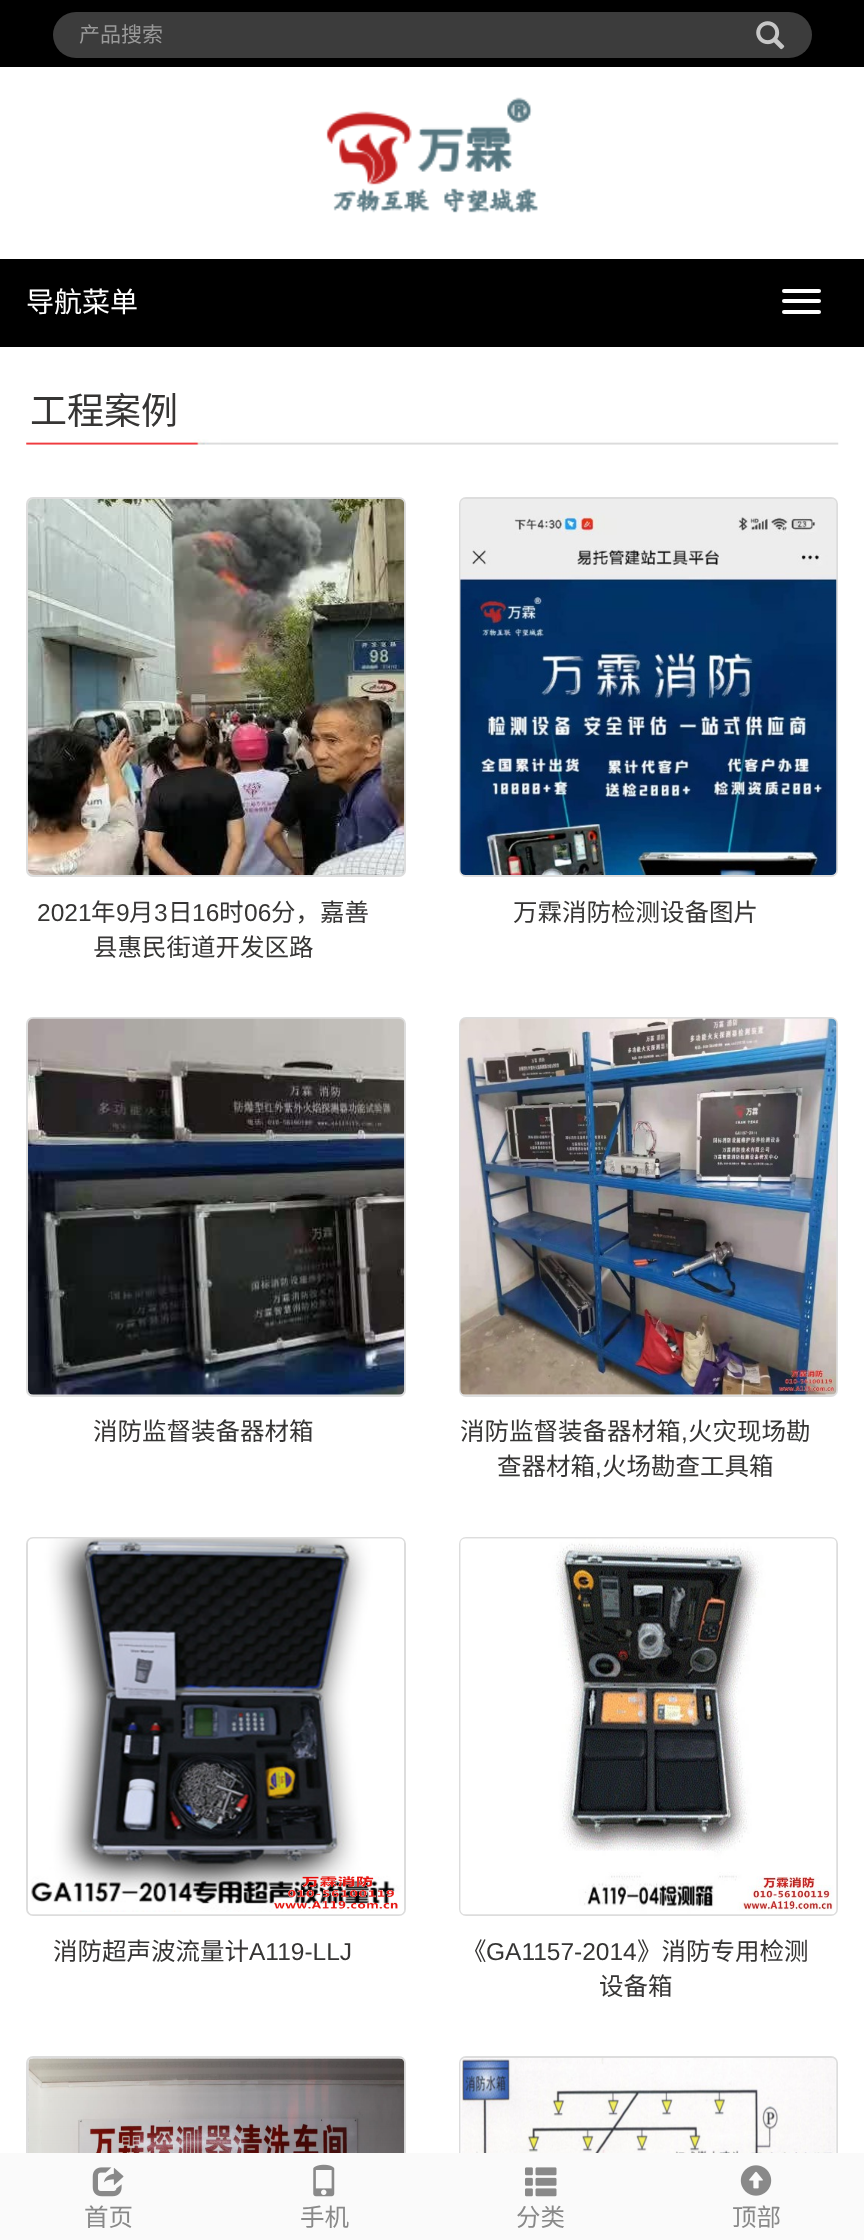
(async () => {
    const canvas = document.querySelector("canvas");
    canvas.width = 864;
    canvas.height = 2240;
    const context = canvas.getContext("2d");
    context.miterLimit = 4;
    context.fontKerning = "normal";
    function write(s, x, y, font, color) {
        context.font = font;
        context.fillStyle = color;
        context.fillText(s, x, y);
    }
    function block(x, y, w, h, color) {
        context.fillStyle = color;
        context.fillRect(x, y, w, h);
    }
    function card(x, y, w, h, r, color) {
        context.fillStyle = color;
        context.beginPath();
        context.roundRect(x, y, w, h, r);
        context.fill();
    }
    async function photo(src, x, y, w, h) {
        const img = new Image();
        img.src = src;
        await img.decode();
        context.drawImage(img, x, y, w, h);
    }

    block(0, 0, 864, 2240, "rgb(255, 255, 255)");
    block(0, 0, 864, 67, "rgb(0, 0, 0)");
    card(53, 12, 759, 46, 23, "rgb(60, 60, 60)");
    write("产品搜索", 79, 42, "21px Noto Sans CJK SC", "rgb(153, 153, 153)");
    await photo("media/1.png", 756, 21, 29, 29);
    await photo("media/2.png", 326, 97, 212, 116);
    block(0, 259, 864, 88, "rgb(0, 0, 0)");
    write("导航菜单", 26, 312, "28px Noto Sans CJK SC", "rgb(255, 255, 255)");
    card(782, 289, 39, 4, 2, "rgb(255, 255, 255)");
    card(782, 299, 39, 4, 2, "rgb(255, 255, 255)");
    card(782, 310, 39, 4, 2, "rgb(255, 255, 255)");
    await photo("media/3.png", 26, 439, 813, 6);
    write("工程案例", 30, 424, "37px Noto Sans CJK SC", "rgb(54, 53, 52)");
    context.beginPath();
    context.roundRect(27, 498, 378, 378, 6);
    context.strokeStyle = "rgb(221, 221, 221)";
    context.lineWidth = 2;
    context.stroke();
    await photo("media/4.png", 28, 498, 377, 377);
    write("2021", 37, 921, "24.5px Liberation Sans", "rgb(54, 53, 52)");
    write("年", 91, 921, "24.5px Noto Sans CJK SC", "rgb(54, 53, 52)");
    write("9", 116, 921, "24.5px Liberation Sans", "rgb(54, 53, 52)");
    write("月", 129, 921, "24.5px Noto Sans CJK SC", "rgb(54, 53, 52)");
    write("3", 154, 921, "24.5px Liberation Sans", "rgb(54, 53, 52)");
    write("日", 168, 921, "24.5px Noto Sans CJK SC", "rgb(54, 53, 52)");
    write("16", 192, 921, "24.5px Liberation Sans", "rgb(54, 53, 52)");
    write("时", 219, 921, "24.5px Noto Sans CJK SC", "rgb(54, 53, 52)");
    write("06", 244, 921, "24.5px Liberation Sans", "rgb(54, 53, 52)");
    write("分，嘉善", 271, 921, "24.5px Noto Sans CJK SC", "rgb(54, 53, 52)");
    write("县惠民街道开发区路", 93, 956, "24.5px Noto Sans CJK SC", "rgb(54, 53, 52)");
    context.beginPath();
    context.roundRect(460, 498, 377, 378, 6);
    context.stroke();
    await photo("media/5.png", 460, 499, 377, 376);
    write("万霖消防检测设备图片", 513, 921, "24.5px Noto Sans CJK SC", "rgb(54, 53, 52)");
    context.beginPath();
    context.roundRect(27, 1018, 378, 378, 6);
    context.stroke();
    await photo("media/6.png", 28, 1018, 377, 377);
    write("消防监督装备器材箱", 93, 1440, "24.5px Noto Sans CJK SC", "rgb(54, 53, 52)");
    context.beginPath();
    context.roundRect(460, 1018, 377, 378, 6);
    context.stroke();
    await photo("media/7.png", 460, 1018, 377, 377);
    write("消防监督装备器材箱", 460, 1440, "24.5px Noto Sans CJK SC", "rgb(54, 53, 52)");
    write(",", 681, 1440, "24.5px Liberation Sans", "rgb(54, 53, 52)");
    write("火灾现场勘", 688, 1440, "24.5px Noto Sans CJK SC", "rgb(54, 53, 52)");
    write("查器材箱", 497, 1475, "24.5px Noto Sans CJK SC", "rgb(54, 53, 52)");
    write(",", 595, 1475, "24.5px Liberation Sans", "rgb(54, 53, 52)");
    write("火场勘查工具箱", 602, 1475, "24.5px Noto Sans CJK SC", "rgb(54, 53, 52)");
    context.beginPath();
    context.roundRect(27, 1538, 378, 377, 6);
    context.stroke();
    await photo("media/8.png", 28, 1538, 376, 377);
    write("消防超声波流量计", 53, 1960, "24.5px Noto Sans CJK SC", "rgb(54, 53, 52)");
    write("A119-LLJ", 249, 1960, "24.5px Liberation Sans", "rgb(54, 53, 52)");
    context.beginPath();
    context.roundRect(460, 1538, 377, 377, 6);
    context.stroke();
    await photo("media/9.png", 460, 1538, 377, 377);
    write("《", 462, 1960, "24.5px Noto Sans CJK SC", "rgb(54, 53, 52)");
    write("GA1157-2014", 486, 1960, "24.5px Liberation Sans", "rgb(54, 53, 52)");
    write("》消防专用检测", 637, 1960, "24.5px Noto Sans CJK SC", "rgb(54, 53, 52)");
    write("设备箱", 599, 1995, "24.5px Noto Sans CJK SC", "rgb(54, 53, 52)");
    context.beginPath();
    context.roundRect(27, 2057, 378, 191, 6);
    context.stroke();
    await photo("media/10.png", 28, 2058, 377, 95);
    context.beginPath();
    context.roundRect(460, 2057, 377, 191, 6);
    context.stroke();
    await photo("media/11.png", 460, 2058, 377, 95);
    block(0, 2153, 864, 87, "rgb(250, 250, 250)");
    await photo("media/12.png", 92, 2167, 32, 30);
    write("首页", 84, 2226, "24.5px Noto Sans CJK SC", "rgb(137, 137, 137)");
    await photo("media/13.png", 313, 2164, 22, 33);
    write("手机", 300, 2226, "24.5px Noto Sans CJK SC", "rgb(137, 137, 137)");
    await photo("media/14.png", 525, 2167, 32, 30);
    write("分类", 516, 2226, "24.5px Noto Sans CJK SC", "rgb(137, 137, 137)");
    await photo("media/15.png", 740, 2165, 32, 31);
    write("顶部", 732, 2226, "24.5px Noto Sans CJK SC", "rgb(137, 137, 137)");
})();
